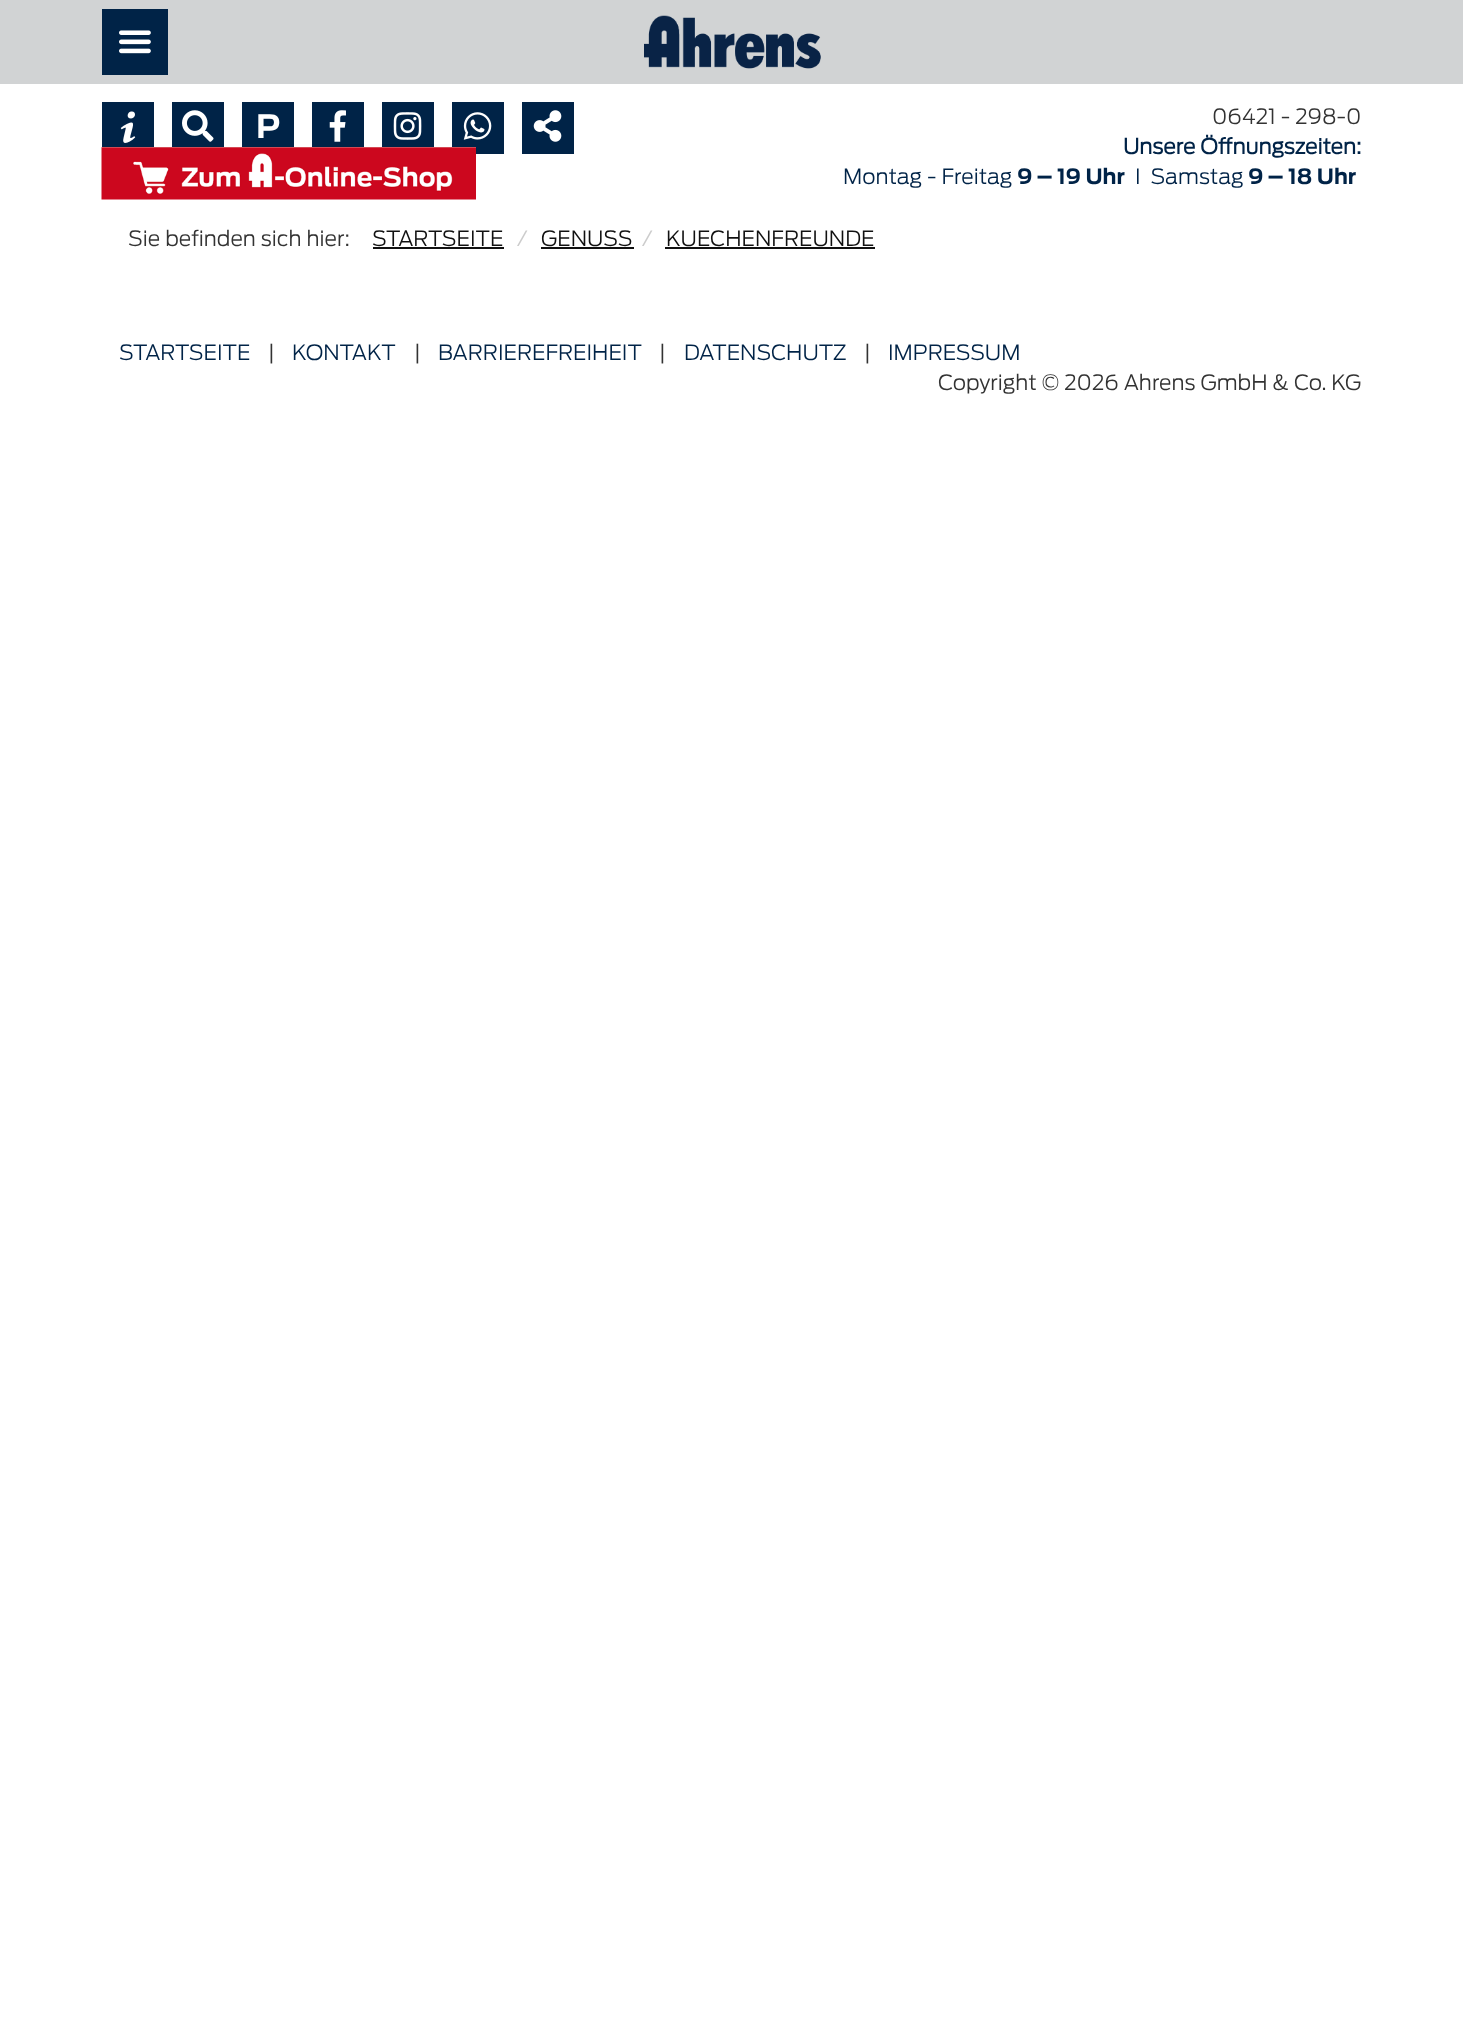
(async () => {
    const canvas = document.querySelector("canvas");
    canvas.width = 1463;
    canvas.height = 2021;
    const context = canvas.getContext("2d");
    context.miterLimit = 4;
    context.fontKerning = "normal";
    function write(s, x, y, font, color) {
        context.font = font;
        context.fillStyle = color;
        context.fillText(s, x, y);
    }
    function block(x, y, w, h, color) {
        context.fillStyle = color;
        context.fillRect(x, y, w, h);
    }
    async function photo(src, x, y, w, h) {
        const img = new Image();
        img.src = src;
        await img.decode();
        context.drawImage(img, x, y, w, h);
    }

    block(0, 0, 1463, 2021, "rgb(255, 255, 255)");
    block(0, 0, 1463, 84, "rgb(209, 211, 212)");
    block(102, 9, 66, 66, "rgb(0, 35, 71)");
    await photo("media/1.png", 119, 30, 32, 24);
    await photo("media/2.png", 644, 15, 177, 54);
    block(102, 102, 52, 45, "rgb(0, 35, 71)");
    await photo("media/3.png", 120, 111, 16, 32);
    block(172, 102, 52, 45, "rgb(0, 35, 71)");
    await photo("media/4.png", 182, 110, 32, 32);
    block(242, 102, 52, 45, "rgb(0, 35, 71)");
    write("P", 256, 138, "bold 32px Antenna", "rgb(255, 255, 255)");
    block(312, 102, 52, 45, "rgb(0, 35, 71)");
    await photo("media/5.png", 329, 110, 17, 32);
    block(382, 102, 52, 45, "rgb(0, 35, 71)");
    await photo("media/6.png", 393, 112, 29, 28);
    block(452, 102, 52, 52, "rgb(0, 35, 71)");
    await photo("media/7.png", 463, 112, 29, 28);
    block(522, 102, 52, 52, "rgb(0, 35, 71)");
    await photo("media/8.png", 533, 110, 29, 32);
    write("06421 - 298-0", 1212, 124, "300 21px Antenna", "rgb(51, 51, 51)");
    await photo("media/9.png", 101, 147, 375, 53);
    write("9 – 19 Uhr", 1017, 184, "bold 21px Antenna", "rgb(0, 35, 71)");
    write("Unsere Öffnungszeiten:", 1123, 154, "bold 21px 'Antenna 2'", "rgb(0, 35, 71)");
    write("Montag - Freitag", 843, 184, "300 21px Antenna", "rgb(0, 35, 71)");
    write("I  Samstag", 1135, 184, "300 21px Antenna", "rgb(0, 35, 71)");
    write("9 – 18 Uhr", 1248, 184, "bold 21px Antenna", "rgb(0, 35, 71)");
    write("Sie befinden sich hier:", 128, 246, "300 21px Antenna", "rgb(51, 51, 51)");
    write("STARTSEITE", 372, 246, "300 21px Antenna", "rgb(17, 17, 17)");
    block(373, 247, 131, 2, "rgb(17, 17, 17)");
    write("/", 517, 246, "300 21px Antenna", "rgb(204, 204, 204)");
    write("GENUSS", 541, 246, "300 21px Antenna", "rgb(17, 17, 17)");
    block(541, 247, 93, 2, "rgb(17, 17, 17)");
    write("/", 642, 246, "300 21px Antenna", "rgb(204, 204, 204)");
    write("KUECHENFREUNDE", 666, 246, "300 21px Antenna", "rgb(17, 17, 17)");
    block(665, 247, 210, 2, "rgb(17, 17, 17)");
    write("STARTSEITE", 119, 360, "300 21px Antenna", "rgb(0, 35, 71)");
    write("|", 268, 360, "300 21px Antenna", "rgb(51, 51, 51)");
    write("KONTAKT", 292, 360, "300 21px Antenna", "rgb(0, 35, 71)");
    write("|", 414, 360, "300 21px Antenna", "rgb(51, 51, 51)");
    write("BARRIEREFREIHEIT", 438, 360, "300 21px Antenna", "rgb(0, 35, 71)");
    write("|", 659, 360, "300 21px Antenna", "rgb(51, 51, 51)");
    write("DATENSCHUTZ", 684, 360, "300 21px Antenna", "rgb(0, 35, 71)");
    write("|", 864, 360, "300 21px Antenna", "rgb(51, 51, 51)");
    write("IMPRESSUM", 888, 360, "300 21px Antenna", "rgb(0, 35, 71)");
    write("Copyright © 2026 Ahrens GmbH & Co. KG", 938, 390, "300 21px Antenna", "rgb(51, 51, 51)");
})();
